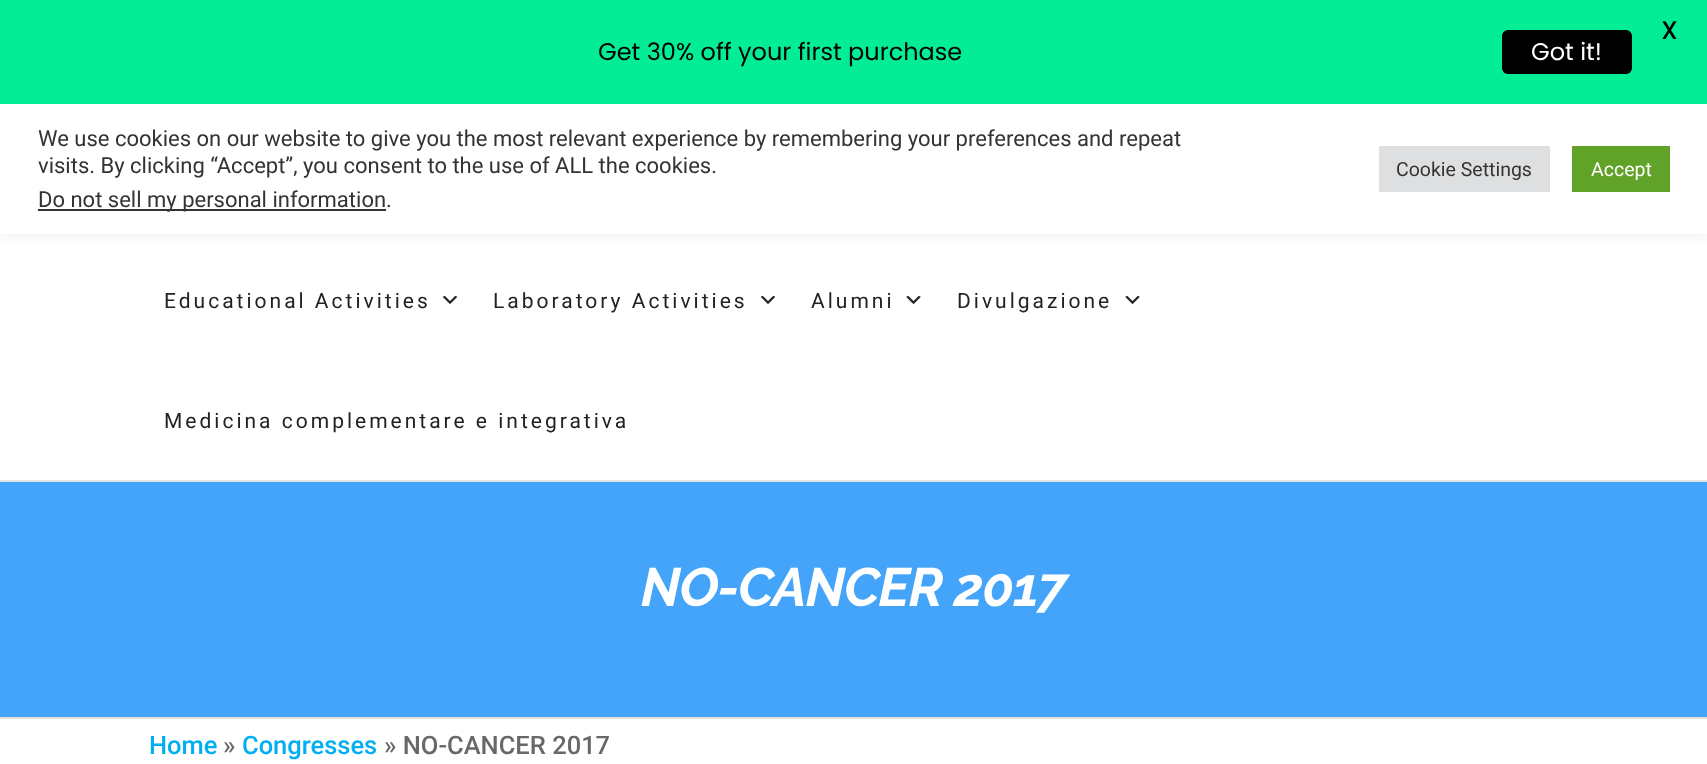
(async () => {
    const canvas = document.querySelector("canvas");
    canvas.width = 1707;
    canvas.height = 764;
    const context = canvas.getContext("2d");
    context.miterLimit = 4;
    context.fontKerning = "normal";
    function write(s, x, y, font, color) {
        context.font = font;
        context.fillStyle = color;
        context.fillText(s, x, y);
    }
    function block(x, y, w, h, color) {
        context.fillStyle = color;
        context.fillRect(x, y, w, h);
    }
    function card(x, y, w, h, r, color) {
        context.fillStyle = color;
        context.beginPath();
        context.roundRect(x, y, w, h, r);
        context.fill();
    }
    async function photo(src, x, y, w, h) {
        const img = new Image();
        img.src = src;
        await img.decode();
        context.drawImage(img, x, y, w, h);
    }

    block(0, 0, 1707, 764, "rgb(255, 255, 255)");
    context.fillStyle = "rgba(172, 171, 171, 0.3)";
    context.filter = "blur(7.5px)";
    context.beginPath();
    context.rect(0, 102, 1707, 131);
    context.fill();
    context.filter = "none";
    block(0, 0, 1707, 104, "rgb(3, 237, 150)");
    write("X", 1661, 39, "500 25.5px Poppins", "rgb(0, 0, 0)");
    write("Get 30% off your first purchase", 598, 60, "24px Poppins", "rgb(0, 0, 0)");
    card(1502, 30, 130, 44, 6, "rgb(0, 0, 0)");
    write("Got it!", 1531, 60, "24px Poppins", "rgb(255, 255, 255)");
    block(0, 104, 1707, 130, "rgb(255, 255, 255)");
    write("We use cookies on our website to give you the most relevant experience by remembering your preferences and repeat", 38, 146, "22px Roboto", "rgb(51, 51, 51)");
    write("visits. By clicking “Accept”, you consent to the use of ALL the cookies.", 38, 173, "22px Roboto", "rgb(51, 51, 51)");
    block(38, 209, 348, 2, "rgb(51, 51, 51)");
    write("Do not sell my personal information.", 38, 207, "22px Roboto", "rgb(51, 51, 51)");
    block(1379, 146, 171, 46, "rgb(222, 223, 224)");
    write("Cookie Settings", 1396, 176, "19.5px Roboto", "rgb(51, 51, 51)");
    block(1572, 146, 98, 46, "rgb(97, 162, 41)");
    write("Accept", 1591, 176, "19.5px Roboto", "rgb(255, 255, 255)");
    block(0, 480, 1707, 2, "rgb(226, 226, 226)");
    context.letterSpacing = "3px";
    write("Educational Activities", 164, 308, "21px Roboto", "rgb(34, 34, 34)");
    await photo("media/1.png", 442, 295, 16, 9);
    write("Laboratory Activities", 493, 308, "21px Roboto", "rgb(34, 34, 34)");
    await photo("media/1.png", 760, 295, 16, 9);
    write("Alumni", 811, 308, "21px Roboto", "rgb(34, 34, 34)");
    await photo("media/2.png", 906, 295, 15, 10);
    write("Divulgazione", 957, 308, "21px Roboto", "rgb(34, 34, 34)");
    await photo("media/2.png", 1125, 295, 15, 10);
    write("Medicina complementare e integrativa", 164, 428, "21px Roboto", "rgb(34, 34, 34)");
    block(0, 717, 1707, 2, "rgb(226, 226, 226)");
    block(0, 482, 1707, 235, "rgb(67, 164, 250)");
    context.letterSpacing = "-1.1px";
    write("NO-CANCER 2017", 641, 606, "italic 100 54px Raleway", "rgb(255, 255, 255)");
    context.letterSpacing = "0px";
    write("Home", 149, 754, "500 25.5px Roboto", "rgb(0, 175, 242)");
    write("»", 223, 754, "500 25.5px Roboto", "rgb(104, 104, 104)");
    write("Congresses", 242, 754, "500 25.5px Roboto", "rgb(0, 175, 242)");
    write("» NO-CANCER 2017", 384, 754, "500 25.5px Roboto", "rgb(104, 104, 104)");
})();
